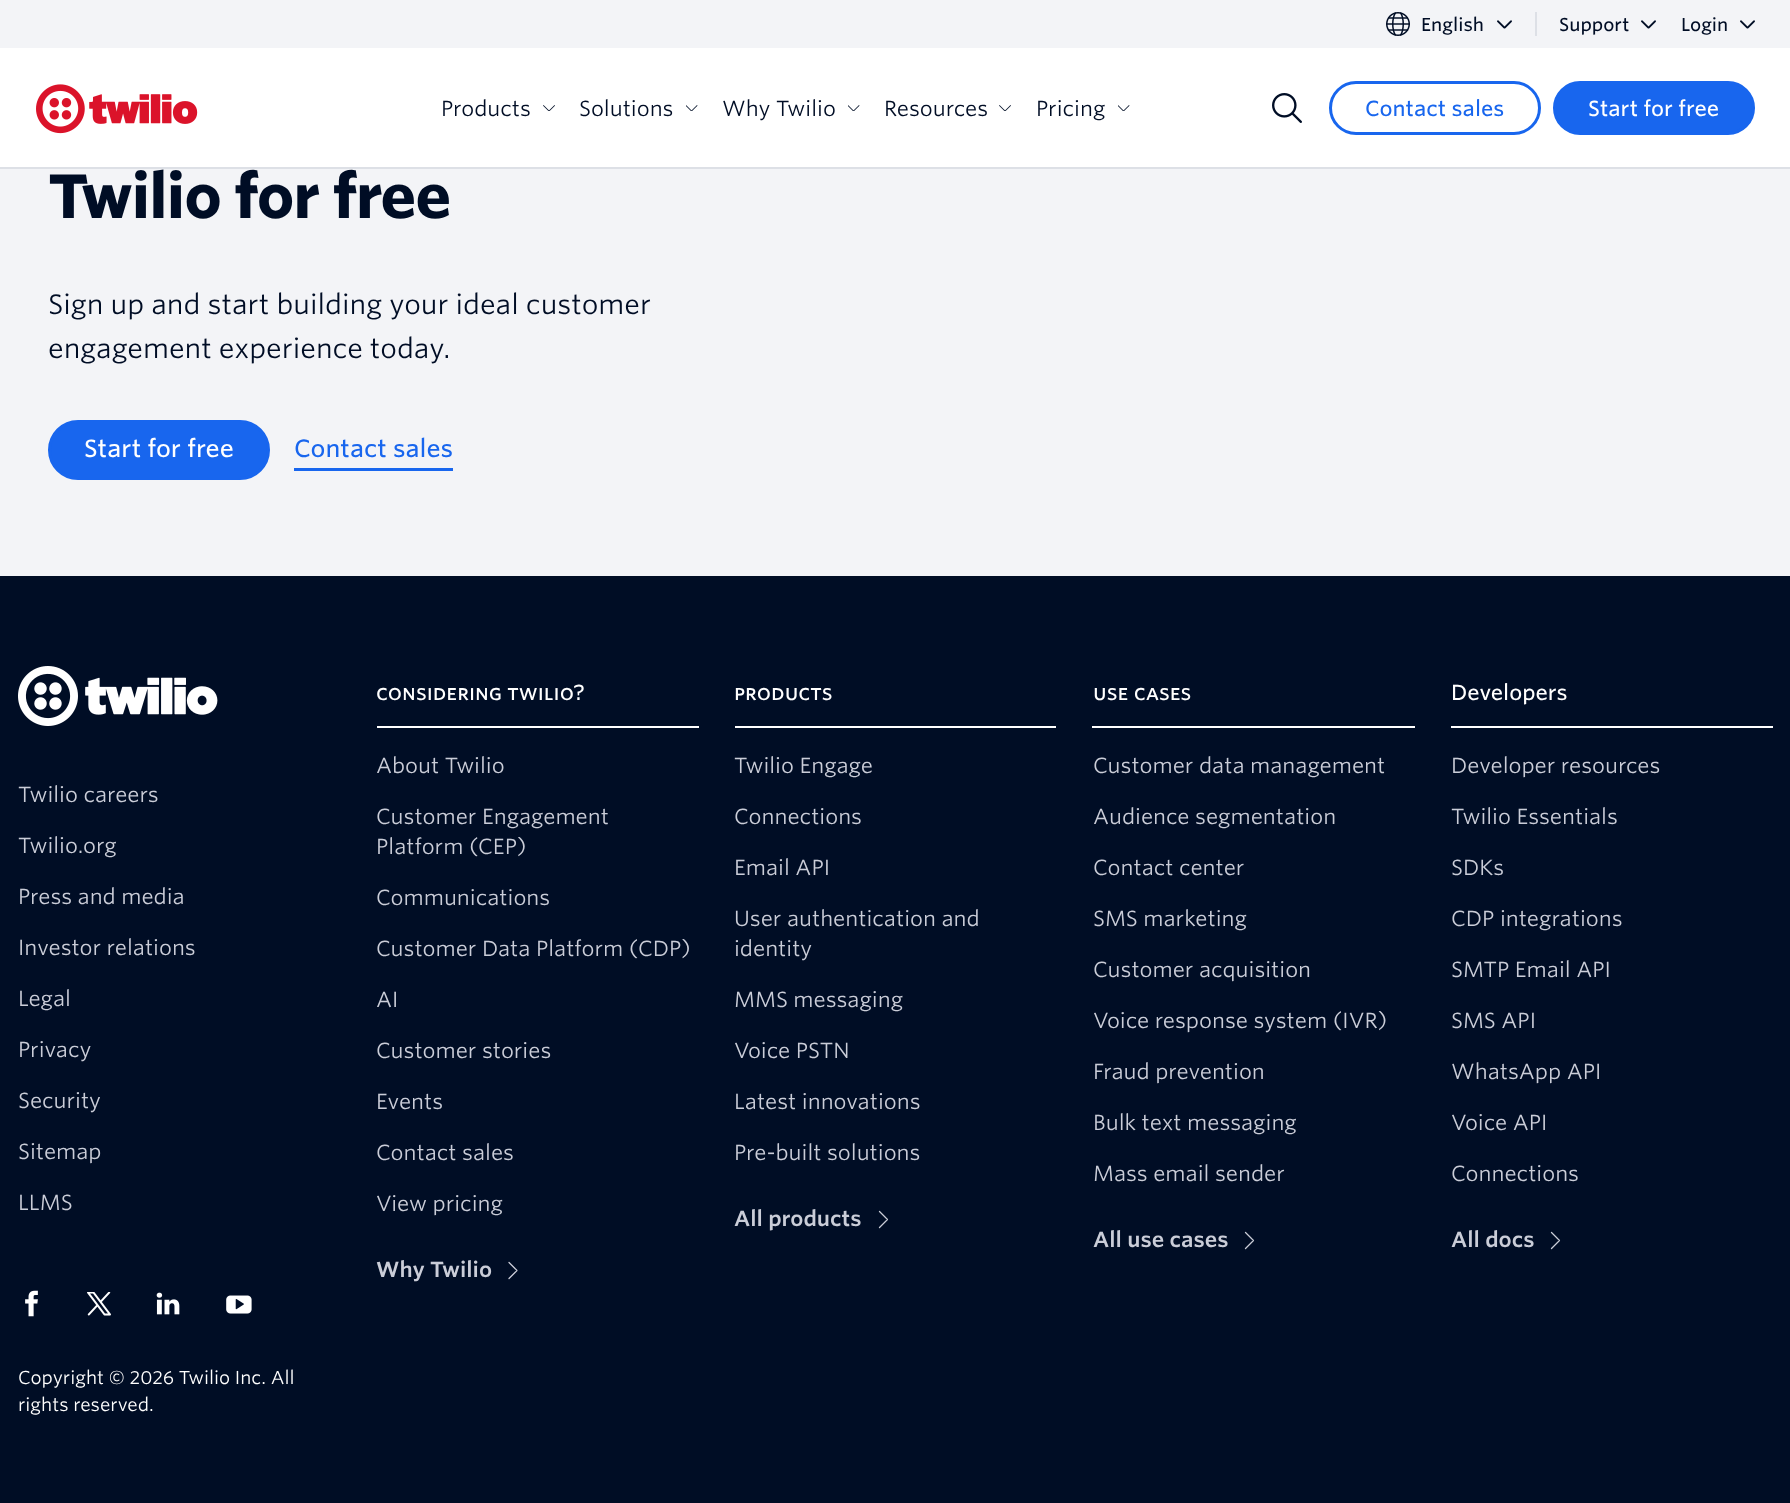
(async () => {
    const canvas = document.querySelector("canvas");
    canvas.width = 1790;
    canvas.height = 1503;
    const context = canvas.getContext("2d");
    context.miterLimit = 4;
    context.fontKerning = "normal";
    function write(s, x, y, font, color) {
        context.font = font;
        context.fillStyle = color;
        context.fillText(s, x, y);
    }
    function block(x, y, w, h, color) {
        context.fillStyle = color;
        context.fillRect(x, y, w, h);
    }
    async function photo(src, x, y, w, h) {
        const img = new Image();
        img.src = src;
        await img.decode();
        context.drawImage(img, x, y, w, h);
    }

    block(0, 0, 1790, 1503, "rgb(243, 244, 247)");
    block(0, 48, 1790, 119, "rgb(255, 255, 255)");
    block(0, 167, 1790, 2, "rgb(221, 224, 230)");
    await photo("media/1.png", 1386, 12, 24, 24);
    write("English", 1421, 31, "500 18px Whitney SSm", "rgb(0, 13, 37)");
    await photo("media/2.png", 1497, 20, 15, 9);
    block(1535, 12, 2, 24, "rgb(221, 224, 230)");
    write("Support", 1559, 31, "500 18px Whitney SSm", "rgb(0, 13, 37)");
    await photo("media/2.png", 1641, 20, 15, 9);
    write("Login", 1681, 31, "500 18px Whitney SSm", "rgb(0, 13, 37)");
    await photo("media/2.png", 1740, 20, 15, 9);
    await photo("media/3.png", 36, 84, 162, 50);
    write("Products", 441, 116, "21px Whitney SSm", "rgb(0, 13, 37)");
    await photo("media/4.png", 543, 105, 12, 6);
    write("Solutions", 579, 116, "21px Whitney SSm", "rgb(0, 13, 37)");
    await photo("media/5.png", 686, 105, 12, 6);
    write("Why Twilio", 722, 116, "21px Whitney SSm", "rgb(0, 13, 37)");
    await photo("media/5.png", 848, 105, 12, 6);
    write("Resources", 884, 116, "21px Whitney SSm", "rgb(0, 13, 37)");
    await photo("media/4.png", 999, 105, 12, 6);
    write("Pricing", 1036, 116, "21px Whitney SSm", "rgb(0, 13, 37)");
    await photo("media/5.png", 1118, 105, 12, 6);
    await photo("media/6.png", 1272, 93, 30, 30);
    context.beginPath();
    context.roundRect(1330.5, 82.5, 209, 51, 25.5);
    context.strokeStyle = "rgb(24, 102, 238)";
    context.lineWidth = 3;
    context.stroke();
    write("Contact sales", 1365, 116, "500 21px Whitney SSm", "rgb(24, 102, 238)");
    context.beginPath();
    context.roundRect(1554.5, 82.5, 199, 51, 25.5);
    context.fill();
    context.stroke();
    write("Start for free", 1588, 116, "500 21px Whitney SSm", "rgb(255, 255, 255)");
    context.letterSpacing = "-1.25px";
    write("Twilio for free", 48, 218, "bold 60px Whitney SSm", "rgb(0, 13, 37)");
    context.letterSpacing = "0px";
    write("Sign up and start building your ideal customer", 48, 314, "27px Whitney SSm", "rgb(0, 13, 37)");
    write("engagement experience today.", 48, 358, "27px Whitney SSm", "rgb(0, 13, 37)");
    context.fillStyle = "rgb(24, 102, 238)";
    context.beginPath();
    context.roundRect(49.5, 421.5, 219, 57, 28.5);
    context.fill();
    context.stroke();
    write("Start for free", 84, 457, "500 24px Whitney SSm", "rgb(255, 255, 255)");
    block(294, 468, 159, 3, "rgb(24, 102, 238)");
    write("Contact sales", 294, 457, "500 24px Whitney SSm", "rgb(24, 102, 238)");
    block(0, 576, 1790, 927, "rgb(0, 13, 37)");
    await photo("media/7.png", 18, 666, 200, 60);
    write("Twilio careers", 18, 802, "21px Whitney SSm", "rgb(202, 205, 216)");
    write("Twilio.org", 18, 853, "21px Whitney SSm", "rgb(202, 205, 216)");
    write("Press and media", 18, 904, "21px Whitney SSm", "rgb(202, 205, 216)");
    write("Investor relations", 18, 955, "21px Whitney SSm", "rgb(202, 205, 216)");
    write("Legal", 18, 1006, "21px Whitney SSm", "rgb(202, 205, 216)");
    write("Privacy", 18, 1057, "21px Whitney SSm", "rgb(202, 205, 216)");
    write("Security", 18, 1108, "21px Whitney SSm", "rgb(202, 205, 216)");
    write("Sitemap", 18, 1159, "21px Whitney SSm", "rgb(202, 205, 216)");
    write("LLMS", 18, 1210, "21px Whitney SSm", "rgb(202, 205, 216)");
    await photo("media/8.png", 25, 1290, 13, 27);
    await photo("media/9.png", 87, 1292, 24, 24);
    await photo("media/10.png", 156, 1292, 24, 23);
    await photo("media/11.png", 226, 1295, 26, 19);
    write("Copyright © 2026 Twilio Inc. All", 18, 1384, "18px Whitney SSm", "rgb(255, 255, 255)");
    write("rights reserved.", 18, 1411, "18px Whitney SSm", "rgb(255, 255, 255)");
    write("Considering Twilio?", 376, 700, "500 21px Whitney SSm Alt", "rgb(255, 255, 255)");
    block(377, 726, 322, 2, "rgb(255, 255, 255)");
    write("About Twilio", 376, 773, "21px Whitney SSm", "rgb(202, 205, 216)");
    write("Customer Engagement", 376, 824, "21px Whitney SSm", "rgb(202, 205, 216)");
    write("Platform (CEP)", 376, 854, "21px Whitney SSm", "rgb(202, 205, 216)");
    write("Communications", 376, 905, "21px Whitney SSm", "rgb(202, 205, 216)");
    write("Customer Data Platform (CDP)", 376, 956, "21px Whitney SSm", "rgb(202, 205, 216)");
    write("AI", 376, 1007, "21px Whitney SSm", "rgb(202, 205, 216)");
    write("Customer stories", 376, 1058, "21px Whitney SSm", "rgb(202, 205, 216)");
    write("Events", 376, 1109, "21px Whitney SSm", "rgb(202, 205, 216)");
    write("Contact sales", 376, 1160, "21px Whitney SSm", "rgb(202, 205, 216)");
    write("View pricing", 376, 1211, "21px Whitney SSm", "rgb(202, 205, 216)");
    write("Why Twilio", 376, 1277, "600 21px Whitney SSm", "rgb(202, 205, 216)");
    context.beginPath();
    context.moveTo(509, 1278.5);
    context.lineTo(515.5, 1272);
    context.bezierCurveTo(517.5, 1270.5, 517.5, 1270.5, 515.5, 1269);
    context.lineTo(509, 1262.5);
    context.strokeStyle = "rgb(202, 205, 216)";
    context.lineWidth = 1.3;
    context.lineCap = "round";
    context.lineJoin = "round";
    context.stroke();
    write("Products", 734, 700, "500 21px Whitney SSm Alt", "rgb(255, 255, 255)");
    block(735, 726, 321, 2, "rgb(255, 255, 255)");
    write("Twilio Engage", 734, 773, "21px Whitney SSm", "rgb(202, 205, 216)");
    write("Connections", 734, 824, "21px Whitney SSm", "rgb(202, 205, 216)");
    write("Email API", 734, 875, "21px Whitney SSm", "rgb(202, 205, 216)");
    write("User authentication and", 734, 926, "21px Whitney SSm", "rgb(202, 205, 216)");
    write("identity", 734, 956, "21px Whitney SSm", "rgb(202, 205, 216)");
    write("MMS messaging", 734, 1007, "21px Whitney SSm", "rgb(202, 205, 216)");
    write("Voice PSTN", 734, 1058, "21px Whitney SSm", "rgb(202, 205, 216)");
    write("Latest innovations", 734, 1109, "21px Whitney SSm", "rgb(202, 205, 216)");
    write("Pre-built solutions", 734, 1160, "21px Whitney SSm", "rgb(202, 205, 216)");
    write("All products", 734, 1226, "600 21px Whitney SSm", "rgb(202, 205, 216)");
    context.beginPath();
    context.moveTo(879.5, 1227.5);
    context.lineTo(886, 1221);
    context.bezierCurveTo(888, 1219.5, 888, 1219.5, 886, 1218);
    context.lineTo(879.5, 1211.5);
    context.stroke();
    write("Use Cases", 1093, 700, "500 21px Whitney SSm Alt", "rgb(255, 255, 255)");
    block(1092, 726, 323, 2, "rgb(255, 255, 255)");
    write("Customer data management", 1093, 773, "21px Whitney SSm", "rgb(202, 205, 216)");
    write("Audience segmentation", 1093, 824, "21px Whitney SSm", "rgb(202, 205, 216)");
    write("Contact center", 1093, 875, "21px Whitney SSm", "rgb(202, 205, 216)");
    write("SMS marketing", 1093, 926, "21px Whitney SSm", "rgb(202, 205, 216)");
    write("Customer acquisition", 1093, 977, "21px Whitney SSm", "rgb(202, 205, 216)");
    write("Voice response system (IVR)", 1093, 1028, "21px Whitney SSm", "rgb(202, 205, 216)");
    write("Fraud prevention", 1093, 1079, "21px Whitney SSm", "rgb(202, 205, 216)");
    write("Bulk text messaging", 1093, 1130, "21px Whitney SSm", "rgb(202, 205, 216)");
    write("Mass email sender", 1093, 1181, "21px Whitney SSm", "rgb(202, 205, 216)");
    write("All use cases", 1093, 1247, "600 21px Whitney SSm", "rgb(202, 205, 216)");
    context.beginPath();
    context.moveTo(1245.5, 1248.5);
    context.lineTo(1252, 1242);
    context.bezierCurveTo(1254, 1240.5, 1254, 1240.5, 1252, 1239);
    context.lineTo(1245.5, 1232.5);
    context.stroke();
    write("Developers", 1451, 700, "500 21px Whitney SSm", "rgb(255, 255, 255)");
    block(1451, 726, 322, 2, "rgb(255, 255, 255)");
    write("Developer resources", 1451, 773, "21px Whitney SSm", "rgb(202, 205, 216)");
    write("Twilio Essentials", 1451, 824, "21px Whitney SSm", "rgb(202, 205, 216)");
    write("SDKs", 1451, 875, "21px Whitney SSm", "rgb(202, 205, 216)");
    write("CDP integrations", 1451, 926, "21px Whitney SSm", "rgb(202, 205, 216)");
    write("SMTP Email API", 1451, 977, "21px Whitney SSm", "rgb(202, 205, 216)");
    write("SMS API", 1451, 1028, "21px Whitney SSm", "rgb(202, 205, 216)");
    write("WhatsApp API", 1451, 1079, "21px Whitney SSm", "rgb(202, 205, 216)");
    write("Voice API", 1451, 1130, "21px Whitney SSm", "rgb(202, 205, 216)");
    write("Connections", 1451, 1181, "21px Whitney SSm", "rgb(202, 205, 216)");
    write("All docs", 1451, 1247, "600 21px Whitney SSm", "rgb(202, 205, 216)");
    context.beginPath();
    context.moveTo(1551.5, 1248.5);
    context.lineTo(1558, 1242);
    context.bezierCurveTo(1560, 1240.5, 1560, 1240.5, 1558, 1239);
    context.lineTo(1551.5, 1232.5);
    context.stroke();
})();
